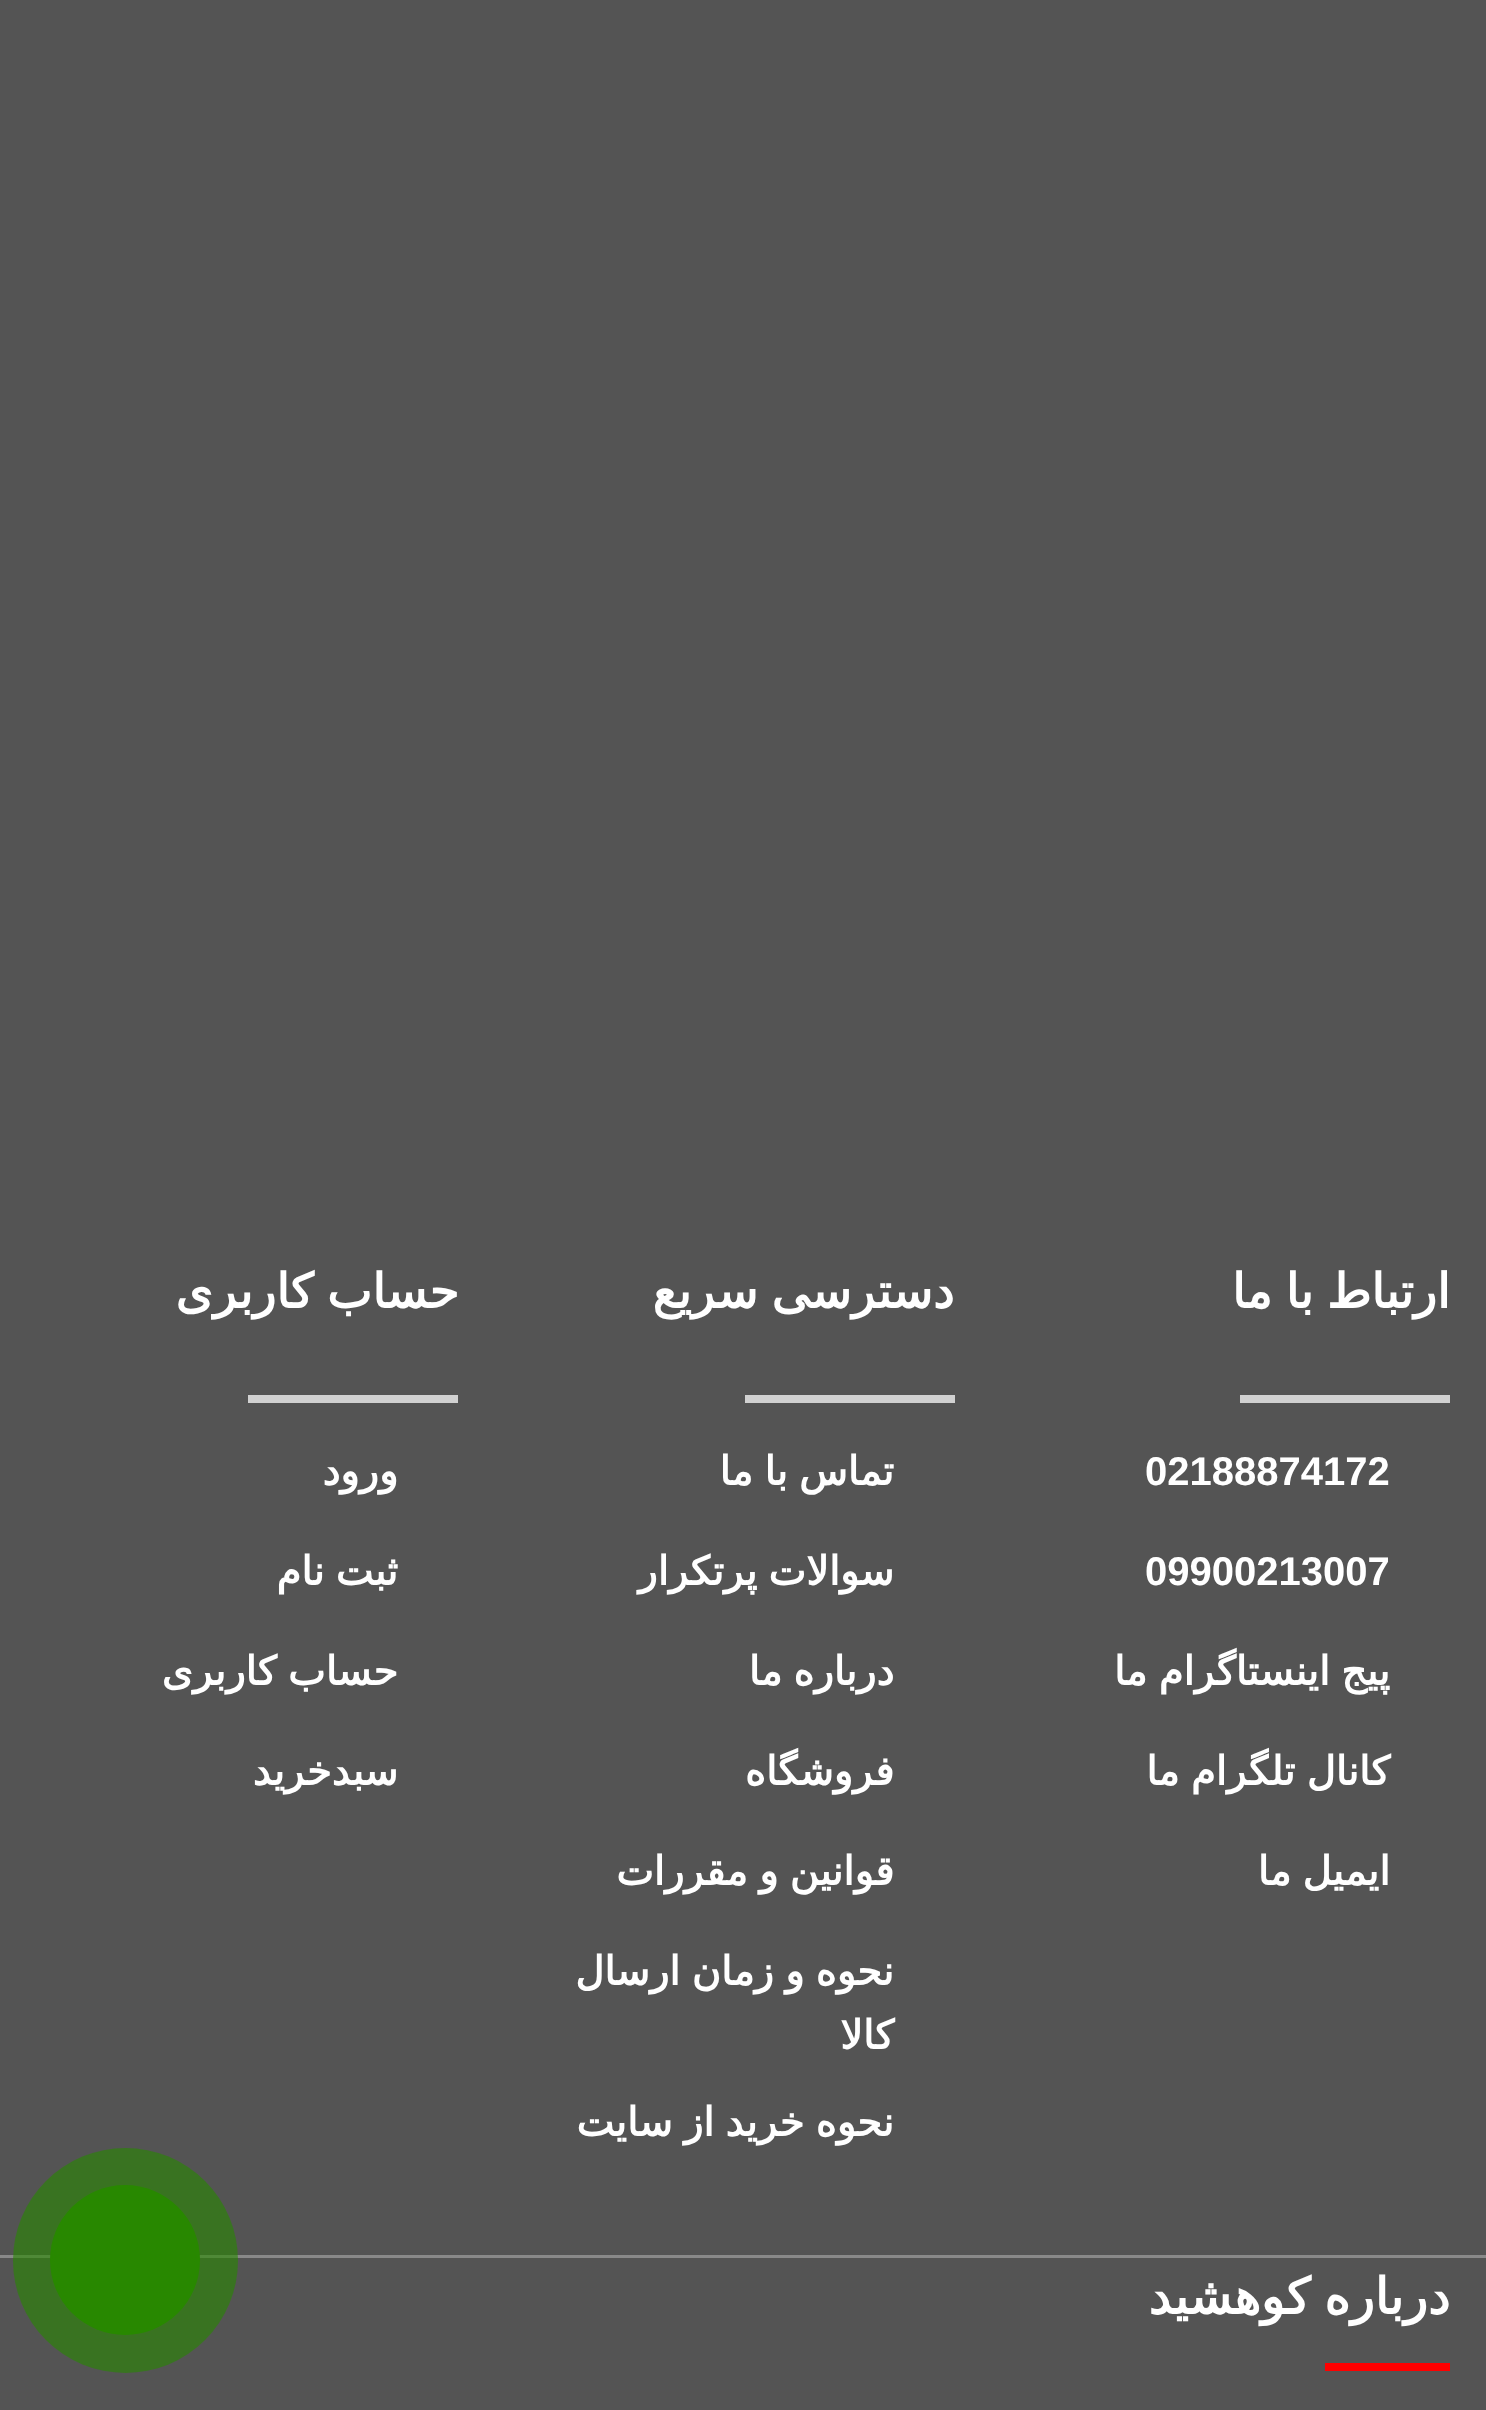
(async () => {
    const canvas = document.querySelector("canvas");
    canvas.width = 1486;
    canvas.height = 2410;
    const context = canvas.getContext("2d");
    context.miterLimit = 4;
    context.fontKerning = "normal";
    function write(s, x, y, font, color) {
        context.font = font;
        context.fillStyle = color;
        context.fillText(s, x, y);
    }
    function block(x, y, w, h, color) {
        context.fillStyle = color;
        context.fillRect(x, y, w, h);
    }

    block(0, 0, 1486, 2410, "rgb(84, 84, 84)");
    context.wordSpacing = "-2px";
    context.direction = "rtl";
    write("ارتباط با ما", 1450, 1308, "bold 48px DejaVu Sans", "rgb(255, 255, 255)");
    block(1240, 1395, 210, 8, "rgb(209, 209, 209)");
    context.wordSpacing = "0px";
    context.direction = "ltr";
    write("02188874172", 1145, 1485, "bold 40px Liberation Sans", "rgb(255, 255, 255)");
    write("09900213007", 1145, 1585, "bold 40px Liberation Sans", "rgb(255, 255, 255)");
    context.wordSpacing = "-1.5px";
    context.direction = "rtl";
    write("پیج اینستاگرام ما", 1390, 1685, "bold 40px DejaVu Sans", "rgb(255, 255, 255)");
    write("کانال تلگرام ما", 1390, 1785, "bold 40px DejaVu Sans", "rgb(255, 255, 255)");
    write("ایمیل ما", 1390, 1885, "bold 40px DejaVu Sans", "rgb(255, 255, 255)");
    context.wordSpacing = "-2px";
    write("دسترسی سریع", 954, 1308, "bold 48px DejaVu Sans", "rgb(255, 255, 255)");
    block(745, 1395, 210, 8, "rgb(209, 209, 209)");
    context.wordSpacing = "-1.5px";
    write("تماس با ما", 894, 1485, "bold 40px DejaVu Sans", "rgb(255, 255, 255)");
    write("سوالات پرتکرار", 894, 1585, "bold 40px DejaVu Sans", "rgb(255, 255, 255)");
    write("درباره ما", 894, 1685, "bold 40px DejaVu Sans", "rgb(255, 255, 255)");
    context.wordSpacing = "0px";
    write("فروشگاه", 894, 1785, "bold 40px DejaVu Sans", "rgb(255, 255, 255)");
    context.wordSpacing = "-1.5px";
    write("قوانین و مقررات", 894, 1885, "bold 40px DejaVu Sans", "rgb(255, 255, 255)");
    write("نحوه و زمان ارسال", 894, 1985, "bold 40px DejaVu Sans", "rgb(255, 255, 255)");
    context.wordSpacing = "0px";
    write("کالا", 894, 2049, "bold 40px DejaVu Sans", "rgb(255, 255, 255)");
    context.wordSpacing = "-1.5px";
    write("نحوه خرید از سایت", 894, 2136, "bold 40px DejaVu Sans", "rgb(255, 255, 255)");
    context.wordSpacing = "-2px";
    write("حساب کاربری", 459, 1308, "bold 48px DejaVu Sans", "rgb(255, 255, 255)");
    block(248, 1395, 210, 8, "rgb(209, 209, 209)");
    context.wordSpacing = "0px";
    write("ورود", 398, 1485, "bold 40px DejaVu Sans", "rgb(255, 255, 255)");
    context.wordSpacing = "-1.5px";
    write("ثبت نام", 398, 1585, "bold 40px DejaVu Sans", "rgb(255, 255, 255)");
    write("حساب کاربری", 398, 1685, "bold 40px DejaVu Sans", "rgb(255, 255, 255)");
    context.wordSpacing = "0px";
    write("سبدخرید", 398, 1785, "bold 40px DejaVu Sans", "rgb(255, 255, 255)");
    block(0, 2255, 1486, 3, "rgb(137, 137, 137)");
    context.fillStyle = "rgb(40, 136, 0)";
    context.beginPath();
    context.arc(125, 2260, 75, 0, Math.PI * 2);
    context.fill();
    context.fillStyle = "rgba(40, 136, 0, 0.6)";
    context.beginPath();
    context.arc(125.5, 2260.5, 112.5, 0, Math.PI * 2);
    context.fill();
    context.wordSpacing = "-2px";
    write("درباره کوهشید", 1450, 2314, "bold 50px DejaVu Sans", "rgb(255, 255, 255)");
    block(1325, 2363, 125, 8, "rgb(255, 0, 0)");
})();
